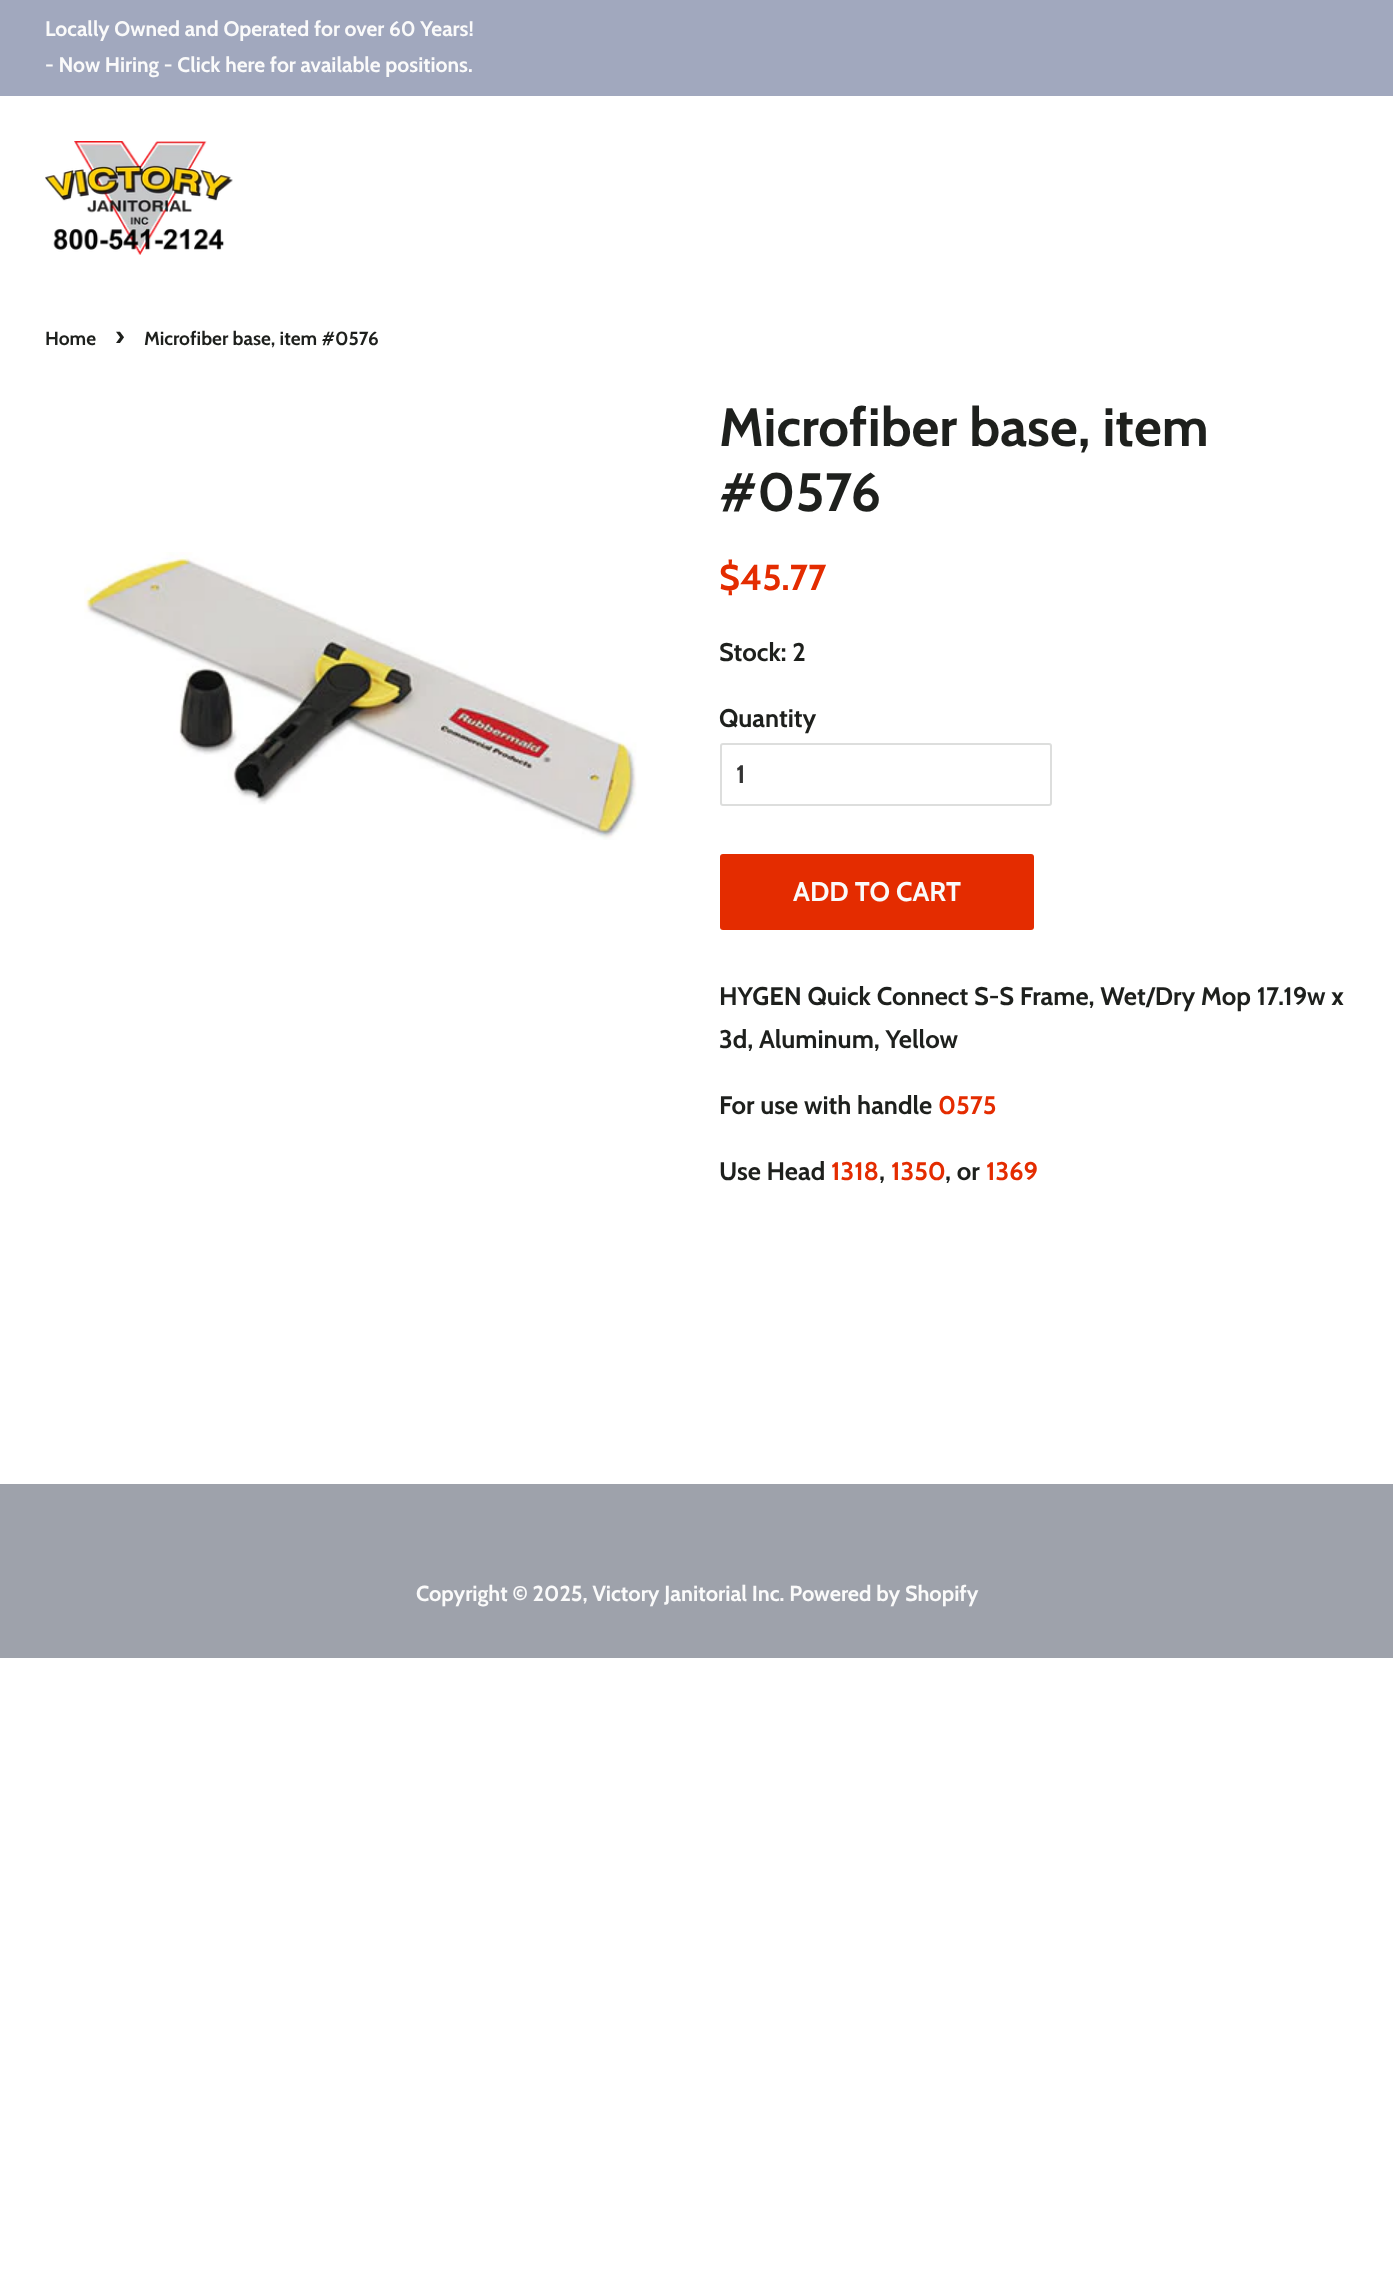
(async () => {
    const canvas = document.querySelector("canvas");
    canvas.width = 1393;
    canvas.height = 2281;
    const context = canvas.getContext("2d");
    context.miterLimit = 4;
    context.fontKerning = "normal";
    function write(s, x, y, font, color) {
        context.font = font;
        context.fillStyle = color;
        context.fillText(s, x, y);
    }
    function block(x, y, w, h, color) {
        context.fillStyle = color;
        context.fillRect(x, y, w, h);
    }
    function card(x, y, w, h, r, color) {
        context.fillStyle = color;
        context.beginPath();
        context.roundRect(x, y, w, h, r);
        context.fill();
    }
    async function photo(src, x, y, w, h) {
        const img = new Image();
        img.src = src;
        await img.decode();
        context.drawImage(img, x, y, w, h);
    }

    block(0, 0, 1393, 2281, "rgb(255, 255, 255)");
    block(0, 0, 1393, 96, "rgb(161, 168, 190)");
    write("Locally Owned and Operated for over 60 Years!", 45, 36, "bold 21px Cabin", "rgb(250, 250, 250)");
    write("- Now Hiring - Click here for available positions.", 45, 72, "bold 21px Cabin", "rgb(250, 250, 250)");
    await photo("media/1.png", 45, 141, 188, 114);
    write("Home", 45, 345, "bold 19.1px Cabin", "rgb(30, 32, 29)");
    write("›", 115, 345, "bold 27px Cabin", "rgb(30, 32, 29)");
    write("Microfiber base, item #0576", 144, 345, "bold 19.1px Cabin", "rgb(30, 32, 29)");
    await photo("media/2.png", 84, 552, 553, 288);
    write("Microfiber base, item", 719, 446, "bold 54px Cabin", "rgb(30, 32, 29)");
    write("#0576", 719, 511, "bold 54px Cabin", "rgb(30, 32, 29)");
    write("$45.77", 719, 590, "bold 36px Cabin", "rgb(228, 44, 0)");
    write("Stock: 2", 719, 661, "bold 25.5px Cabin", "rgb(30, 32, 29)");
    write("Quantity", 719, 727, "bold 25.5px Cabin", "rgb(30, 32, 29)");
    context.beginPath();
    context.roundRect(721, 744, 330, 61, 2);
    context.strokeStyle = "rgb(221, 222, 221)";
    context.lineWidth = 2;
    context.stroke();
    write("1", 736, 783, "bold 25.5px Cabin", "rgb(51, 51, 51)");
    card(720, 854, 314, 76, 3, "rgb(228, 44, 0)");
    write("ADD TO CART", 793, 901, "bold 27px Cabin", "rgb(250, 250, 250)");
    write("HYGEN Quick Connect S-S Frame, Wet/Dry Mop 17.19w x", 719, 1005, "bold 25.5px Cabin", "rgb(30, 32, 29)");
    write("3d, Aluminum, Yellow", 719, 1048, "bold 25.5px Cabin", "rgb(30, 32, 29)");
    write("For use with handle", 719, 1114, "bold 25.5px Cabin", "rgb(30, 32, 29)");
    write("0575", 938, 1114, "bold 25.5px Cabin", "rgb(228, 44, 0)");
    write("Use Head", 719, 1180, "bold 25.5px Cabin", "rgb(30, 32, 29)");
    write("1318", 831, 1180, "bold 25.5px Cabin", "rgb(228, 44, 0)");
    write(",", 879, 1180, "bold 25.5px Cabin", "rgb(30, 32, 29)");
    write("1350", 891, 1180, "bold 25.5px Cabin", "rgb(228, 44, 0)");
    write(", or", 945, 1180, "bold 25.5px Cabin", "rgb(30, 32, 29)");
    write("1369", 986, 1180, "bold 25.5px Cabin", "rgb(228, 44, 0)");
    block(0, 1484, 1393, 174, "rgb(158, 162, 171)");
    write("Copyright © 2025, Victory Janitorial Inc. Powered by Shopify", 416, 1601, "bold 21.7px Cabin", "rgb(250, 250, 250)");
})();
